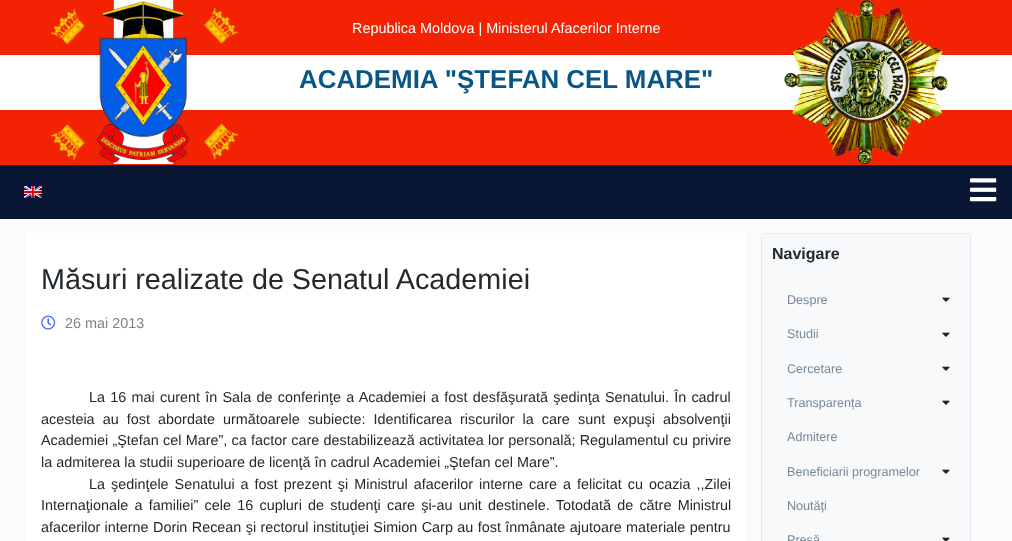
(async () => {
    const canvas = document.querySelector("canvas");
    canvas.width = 1012;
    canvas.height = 541;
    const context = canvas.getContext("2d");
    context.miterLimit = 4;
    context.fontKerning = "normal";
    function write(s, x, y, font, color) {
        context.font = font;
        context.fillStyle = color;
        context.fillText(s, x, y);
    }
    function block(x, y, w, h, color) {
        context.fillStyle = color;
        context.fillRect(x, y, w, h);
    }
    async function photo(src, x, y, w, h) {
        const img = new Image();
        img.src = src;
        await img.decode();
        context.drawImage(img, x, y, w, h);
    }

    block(0, 0, 1012, 541, "rgb(251, 251, 251)");
    block(0, 165, 1012, 54, "rgb(9, 23, 52)");
    context.fillStyle = "rgba(0, 0, 0, 0.05)";
    context.filter = "blur(7px)";
    context.beginPath();
    context.rect(0, 7, 1012, 164);
    context.fill();
    context.filter = "none";
    block(0, 55, 1012, 55, "rgb(255, 255, 255)");
    block(0, 0, 1012, 55, "rgb(242, 34, 2)");
    block(0, 110, 1012, 55, "rgb(242, 34, 2)");
    await photo("media/1.png", 50, 0, 189, 164);
    write("Republica Moldova | Ministerul Afacerilor Interne", 352, 33, "14.4px Liberation Sans", "rgb(255, 255, 255)");
    write("ACADEMIA \"ŞTEFAN CEL MARE\"", 299, 88, "bold 25.9px Liberation Sans", "rgb(8, 86, 133)");
    await photo("media/2.png", 784, 0, 164, 164);
    await photo("media/3.png", 24, 186, 18, 12);
    await photo("media/4.png", 970, 178, 27, 24);
    block(26, 233, 720, 308, "rgb(255, 255, 255)");
    write("Măsuri realizate de Senatul Academiei", 41, 289, "28.75px Liberation Sans", "rgb(36, 41, 46)");
    await photo("media/5.png", 41, 315, 15, 15);
    write("26 mai 2013", 65, 328, "14.4px Liberation Sans", "rgb(130, 130, 130)");
    context.wordSpacing = "1.25px";
    write("La 16 mai curent în Sala de conferinţe a Academiei a fost desfăşurată şedinţa Senatului. În cadrul", 89, 402, "14.4px Liberation Sans", "rgb(36, 41, 46)");
    context.wordSpacing = "4.1px";
    write("acesteia au fost abordate următoarele subiecte: Identificarea riscurilor la care sunt expuşi absolvenţii", 41, 424, "14.4px Liberation Sans", "rgb(36, 41, 46)");
    context.wordSpacing = "0.25px";
    write("Academiei „Ştefan cel Mare”, ca factor care destabilizează activitatea lor personală; Regulamentul cu privire", 41, 445, "14.4px Liberation Sans", "rgb(36, 41, 46)");
    context.wordSpacing = "0px";
    write("la admiterea la studii superioare de licenţă în cadrul Academiei „Ştefan cel Mare”.", 41, 467, "14.4px Liberation Sans", "rgb(36, 41, 46)");
    context.wordSpacing = "2px";
    write("La şedinţele Senatului a fost prezent şi Ministrul afacerilor interne care a felicitat cu ocazia ,,Zilei", 89, 489, "14.4px Liberation Sans", "rgb(36, 41, 46)");
    context.wordSpacing = "2.25px";
    write("Internaţionale a familiei” cele 16 cupluri de studenţi care şi-au unit destinele. Totodată de către Ministrul", 41, 510, "14.4px Liberation Sans", "rgb(36, 41, 46)");
    context.wordSpacing = "0.4px";
    write("afacerilor interne Dorin Recean şi rectorul instituţiei Simion Carp au fost înmânate ajutoare materiale pentru", 41, 532, "14.4px Liberation Sans", "rgb(36, 41, 46)");
    context.fillStyle = "rgb(247, 249, 251)";
    context.beginPath();
    context.roundRect(761.5, 233.5, 209, 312, 3.5);
    context.fill();
    context.strokeStyle = "rgb(229, 231, 242)";
    context.stroke();
    context.wordSpacing = "0px";
    write("Navigare", 772, 259, "bold 16px Liberation Sans", "rgb(36, 41, 46)");
    write("Despre", 787, 304, "12.6px Liberation Sans", "rgb(119, 136, 153)");
    await photo("media/6.png", 942, 297, 8, 5);
    write("Studii", 787, 338, "12.6px Liberation Sans", "rgb(119, 136, 153)");
    await photo("media/6.png", 942, 332, 8, 5);
    write("Cercetare", 787, 373, "12.6px Liberation Sans", "rgb(119, 136, 153)");
    await photo("media/6.png", 942, 366, 8, 5);
    write("Transparența", 787, 407, "12.6px Liberation Sans", "rgb(119, 136, 153)");
    await photo("media/6.png", 942, 400, 8, 5);
    write("Admitere", 787, 441, "12.6px Liberation Sans", "rgb(119, 136, 153)");
    write("Beneficiarii programelor", 787, 476, "12.6px Liberation Sans", "rgb(119, 136, 153)");
    await photo("media/6.png", 942, 469, 8, 5);
    write("Noutăți", 787, 510, "12.6px Liberation Sans", "rgb(119, 136, 153)");
    write("Presă", 787, 544, "12.6px Liberation Sans", "rgb(119, 136, 153)");
    await photo("media/7.png", 942, 537, 8, 4);
})();
